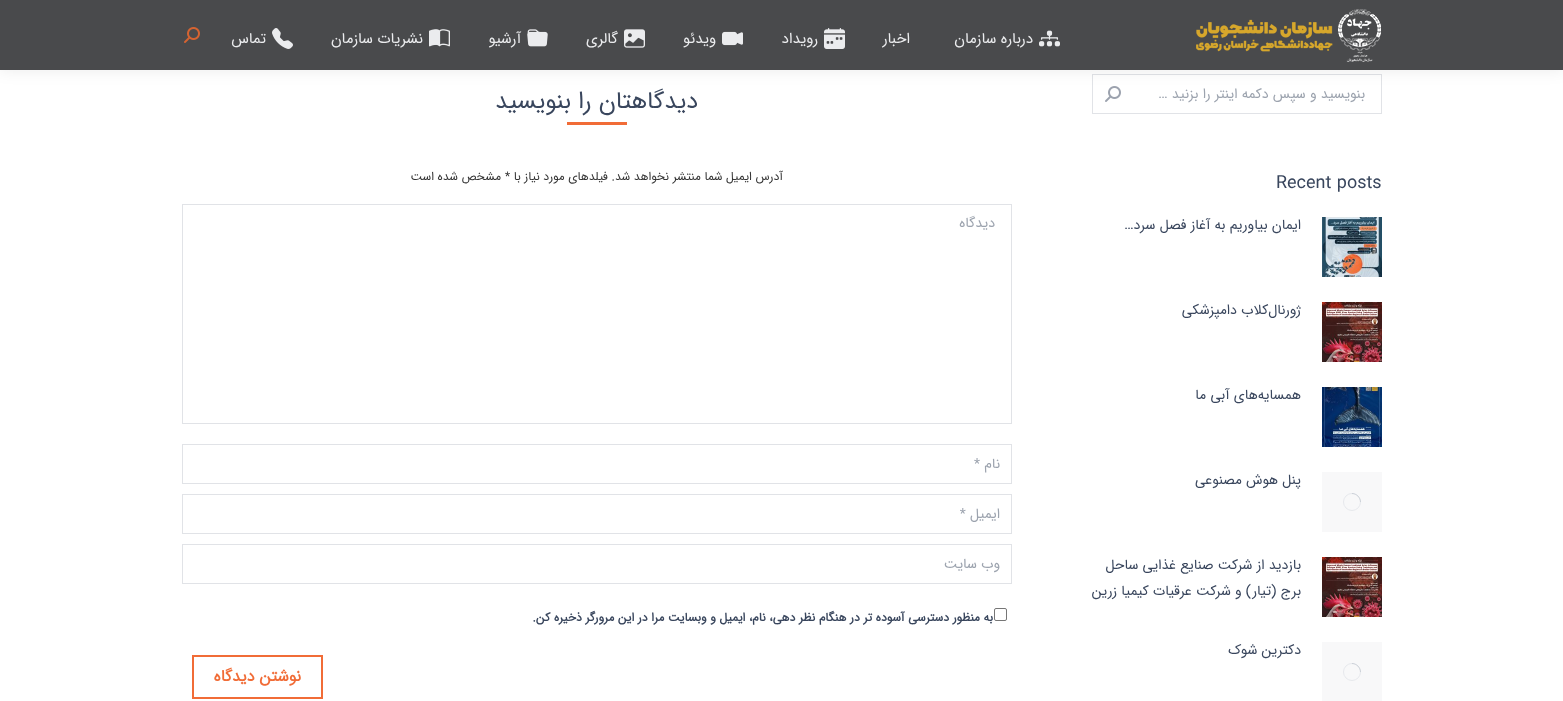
(async () => {
    const canvas = document.querySelector("canvas");
    canvas.width = 1563;
    canvas.height = 701;
    const context = canvas.getContext("2d");
    context.miterLimit = 4;
    context.fontKerning = "normal";
    function write(s, x, y, font, color) {
        context.font = font;
        context.fillStyle = color;
        context.fillText(s, x, y);
    }
    function block(x, y, w, h, color) {
        context.fillStyle = color;
        context.fillRect(x, y, w, h);
    }
    async function photo(src, x, y, w, h) {
        const img = new Image();
        img.src = src;
        await img.decode();
        context.drawImage(img, x, y, w, h);
    }

    block(0, 0, 1563, 701, "rgb(255, 255, 255)");
    context.strokeStyle = "rgb(225, 227, 231)";
    context.strokeRect(1092.5, 74.5, 289, 39);
    await photo("media/10.png", 1105, 86, 16, 16);
    context.fillStyle = "rgba(0, 0, 0, 0.07)";
    context.filter = "blur(7.5px)";
    context.beginPath();
    context.rect(-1, -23, 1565, 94);
    context.fill();
    context.filter = "none";
    block(0, 0, 1563, 70, "rgb(73, 74, 76)");
    await photo("media/1.png", 1196, 9, 185, 53);
    await photo("media/2.png", 1039, 30, 21, 17);
    context.direction = "rtl";
    write("درباره سازمان", 1033, 43, "15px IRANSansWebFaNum", "rgb(235, 236, 238)");
    write("اخبار", 910, 43, "15px IRANSansWebFaNum", "rgb(235, 236, 238)");
    await photo("media/3.png", 824, 28, 21, 21);
    write("رویداد", 818, 43, "15px IRANSansWebFaNum", "rgb(235, 236, 238)");
    await photo("media/4.png", 722, 31, 21, 15);
    write("ویدئو", 716, 43, "15px IRANSansWebFaNum", "rgb(235, 236, 238)");
    await photo("media/5.png", 624, 29, 21, 19);
    write("گالری", 618, 43, "15px IRANSansWebFaNum", "rgb(235, 236, 238)");
    await photo("media/6.png", 527, 29, 21, 18);
    write("آرشیو", 521, 43, "15px IRANSansWebFaNum", "rgb(235, 236, 238)");
    await photo("media/7.png", 429, 29, 21, 18);
    write("نشریات سازمان", 423, 43, "15px IRANSansWebFaNum", "rgb(235, 236, 238)");
    await photo("media/8.png", 272, 28, 21, 21);
    write("تماس", 266, 43, "15px IRANSansWebFaNum", "rgb(235, 236, 238)");
    await photo("media/9.png", 184, 27, 16, 16);
    write("بنویسید و سپس دکمه اینتر را بزنید …", 1365, 98, "14px IRANSansWebFaNum", "rgb(156, 163, 174)");
    context.direction = "ltr";
    write("Recent posts", 1276, 188, "18px IRANSansWebFaNum", "rgb(57, 70, 93)");
    await photo("media/11.png", 1322, 217, 60, 60);
    context.direction = "rtl";
    write("ایمان بیاوریم به آغاز فصل سرد…", 1301, 229, "14px IRANSansWebFaNum", "rgb(57, 70, 93)");
    await photo("media/12.png", 1322, 302, 60, 60);
    write("ژورنال‌کلاب دامپزشکی", 1301, 314, "14px IRANSansWebFaNum", "rgb(57, 70, 93)");
    await photo("media/13.png", 1322, 387, 60, 60);
    write("همسایه‌های آبی ما", 1301, 399, "14px IRANSansWebFaNum", "rgb(57, 70, 93)");
    block(1322, 472, 60, 60, "rgb(248, 248, 249)");
    context.beginPath();
    context.arc(1352, 502, 8.5, 0, Math.PI * 2);
    context.strokeStyle = "rgb(228, 231, 235)";
    context.lineWidth = 0.9;
    context.stroke();
    context.beginPath();
    context.moveTo(1360.5, 502);
    context.bezierCurveTo(1360.5, 497.5, 1356.5, 493.5, 1352, 493.5);
    context.strokeStyle = "rgba(106, 121, 144, 0.25)";
    context.stroke();
    write("پنل هوش مصنوعی", 1301, 484, "14px IRANSansWebFaNum", "rgb(57, 70, 93)");
    await photo("media/12.png", 1322, 557, 60, 60);
    write("بازدید از شرکت صنایع غذایی ساحل", 1301, 569, "14px IRANSansWebFaNum", "rgb(57, 70, 93)");
    write("برج (تیار) و شرکت عرقیات کیمیا زرین", 1301, 595, "14px IRANSansWebFaNum", "rgb(57, 70, 93)");
    block(1322, 642, 60, 59, "rgb(248, 248, 249)");
    context.beginPath();
    context.arc(1352, 672, 8.5, 0, Math.PI * 2);
    context.strokeStyle = "rgb(228, 231, 235)";
    context.stroke();
    context.beginPath();
    context.moveTo(1360.5, 672);
    context.bezierCurveTo(1360.5, 667.5, 1356.5, 663.5, 1352, 663.5);
    context.strokeStyle = "rgba(106, 121, 144, 0.25)";
    context.stroke();
    write("دکترین شوک", 1301, 654, "14px IRANSansWebFaNum", "rgb(57, 70, 93)");
    write("دیدگاهتان را بنویسید", 698, 108, "24px IRANSansWebFaNum", "rgb(57, 70, 93)");
    block(567, 122, 60, 3, "rgb(241, 108, 55)");
    write("آدرس ایمیل شما منتشر نخواهد شد. فیلدهای مورد نیاز با", 783, 180, "12px IRANSansWebFaNum", "rgb(51, 51, 51)");
    context.direction = "ltr";
    write("*", 505, 180, "12px IRANSansWebFaNum", "rgb(51, 51, 51)");
    context.direction = "rtl";
    write("مشخص شده است", 501, 180, "12px IRANSansWebFaNum", "rgb(51, 51, 51)");
    context.strokeStyle = "rgb(225, 227, 231)";
    context.lineWidth = 1;
    context.strokeRect(182.5, 204.5, 829, 219);
    write("دیدگاه", 995, 227, "14px IRANSansWebFaNum", "rgb(156, 163, 174)");
    context.strokeRect(182.5, 444.5, 829, 39);
    write("نام *", 1000, 468, "14px IRANSansWebFaNum", "rgb(156, 163, 174)");
    context.strokeRect(182.5, 494.5, 829, 39);
    write("ایمیل *", 1000, 518, "14px IRANSansWebFaNum", "rgb(156, 163, 174)");
    context.strokeRect(182.5, 544.5, 829, 39);
    write("وب سایت", 1000, 568, "14px IRANSansWebFaNum", "rgb(156, 163, 174)");
    context.beginPath();
    context.roundRect(994.5, 608.5, 12, 12, 1.5);
    context.strokeStyle = "rgb(118, 118, 118)";
    context.stroke();
    write("به منظور دسترسی آسوده تر در هنگام نظر دهی، نام، ایمیل و وبسایت مرا در این مرورگر ذخیره کن.", 993, 621, "bold 12px IRANSansWebFaNum", "rgb(57, 70, 93)");
    context.strokeStyle = "rgb(241, 108, 55)";
    context.lineWidth = 2;
    context.strokeRect(193, 656, 129, 42);
    write("نوشتن دیدگاه", 301, 681, "bold 16px IRANSansWebFaNum", "rgb(241, 108, 55)");
})();
